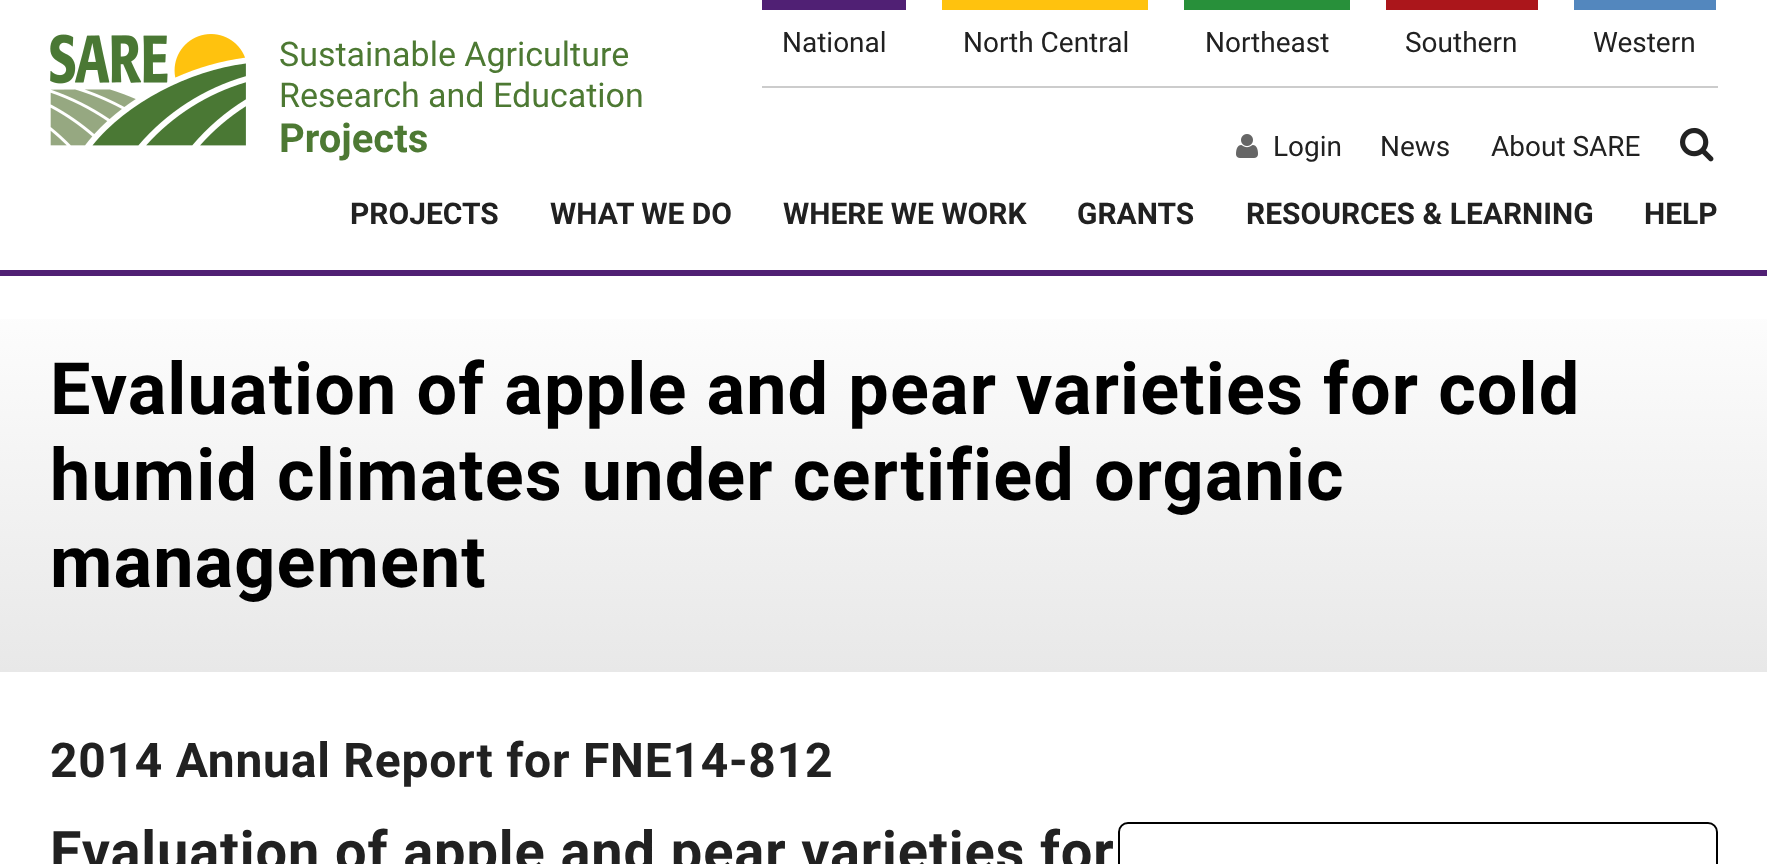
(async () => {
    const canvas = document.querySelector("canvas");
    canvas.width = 1767;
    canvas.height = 864;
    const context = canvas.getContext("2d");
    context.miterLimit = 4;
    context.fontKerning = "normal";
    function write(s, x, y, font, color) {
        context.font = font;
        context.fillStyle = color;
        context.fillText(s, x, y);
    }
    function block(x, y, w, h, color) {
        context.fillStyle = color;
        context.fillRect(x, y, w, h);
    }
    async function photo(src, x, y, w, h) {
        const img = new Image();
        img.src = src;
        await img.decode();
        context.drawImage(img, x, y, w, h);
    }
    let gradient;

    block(0, 0, 1767, 864, "rgb(255, 255, 255)");
    block(0, 270, 1767, 6, "rgb(80, 32, 116)");
    block(762, 86, 956, 2, "rgb(204, 204, 204)");
    block(762, 0, 144, 10, "rgb(80, 32, 116)");
    write("National", 782, 52, "28px Roboto", "rgb(33, 33, 33)");
    block(942, 0, 206, 10, "rgb(255, 194, 14)");
    write("North Central", 963, 52, "28px Roboto", "rgb(33, 33, 33)");
    block(1184, 0, 166, 10, "rgb(40, 144, 58)");
    write("Northeast", 1205, 52, "28px Roboto", "rgb(33, 33, 33)");
    block(1386, 0, 152, 10, "rgb(171, 22, 27)");
    write("Southern", 1405, 52, "28px Roboto", "rgb(33, 33, 33)");
    block(1574, 0, 142, 10, "rgb(83, 135, 190)");
    write("Western", 1593, 52, "28px Roboto", "rgb(33, 33, 33)");
    await photo("media/1.png", 50, 34, 196, 112);
    write("Sustainable Agriculture", 279, 66, "34px Roboto", "rgb(77, 121, 51)");
    write("Research and Education", 279, 107, "34px Roboto", "rgb(77, 121, 51)");
    write("Projects", 279, 152, "bold 40px Roboto", "rgb(77, 121, 51)");
    await photo("media/2.png", 1236, 134, 22, 24);
    write("Login", 1273, 156, "28px Roboto", "rgb(33, 33, 33)");
    write("News", 1380, 156, "28px Roboto", "rgb(33, 33, 33)");
    write("About SARE", 1491, 156, "28px Roboto", "rgb(33, 33, 33)");
    await photo("media/3.png", 1680, 127, 34, 35);
    write("PROJECTS", 350, 224, "bold 30px Roboto", "rgb(33, 33, 33)");
    write("WHAT WE DO", 550, 224, "bold 30px Roboto", "rgb(33, 33, 33)");
    write("WHERE WE WORK", 783, 224, "bold 30px Roboto", "rgb(33, 33, 33)");
    write("GRANTS", 1077, 224, "bold 30px Roboto", "rgb(33, 33, 33)");
    write("RESOURCES & LEARNING", 1246, 224, "bold 30px Roboto", "rgb(33, 33, 33)");
    write("HELP", 1644, 224, "bold 30px Roboto", "rgb(33, 33, 33)");
    gradient = context.createLinearGradient(884, 276, 884, 672);
    gradient.addColorStop(0, "rgb(255, 255, 255)");
    gradient.addColorStop(1, "rgb(232, 232, 232)");
    context.fillStyle = gradient;
    context.fillRect(0, 319, 1767, 353);
    context.letterSpacing = "1.1px";
    write("Evaluation of apple and pear varieties for cold", 50, 414, "bold 72px Roboto", "rgb(0, 0, 0)");
    write("humid climates under certified organic", 50, 500, "bold 72px Roboto", "rgb(0, 0, 0)");
    write("management", 50, 587, "bold 72px Roboto", "rgb(0, 0, 0)");
    context.letterSpacing = "0.75px";
    write("2014 Annual Report for FNE14-812", 50, 777, "bold 48px Roboto", "rgb(33, 33, 33)");
    context.letterSpacing = "0.85px";
    write("Evaluation of apple and pear varieties for", 50, 871, "bold 56px Roboto", "rgb(33, 33, 33)");
    context.beginPath();
    context.roundRect(1119, 823, 598, 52, 9);
    context.strokeStyle = "rgb(0, 0, 0)";
    context.lineWidth = 2;
    context.stroke();
})();
